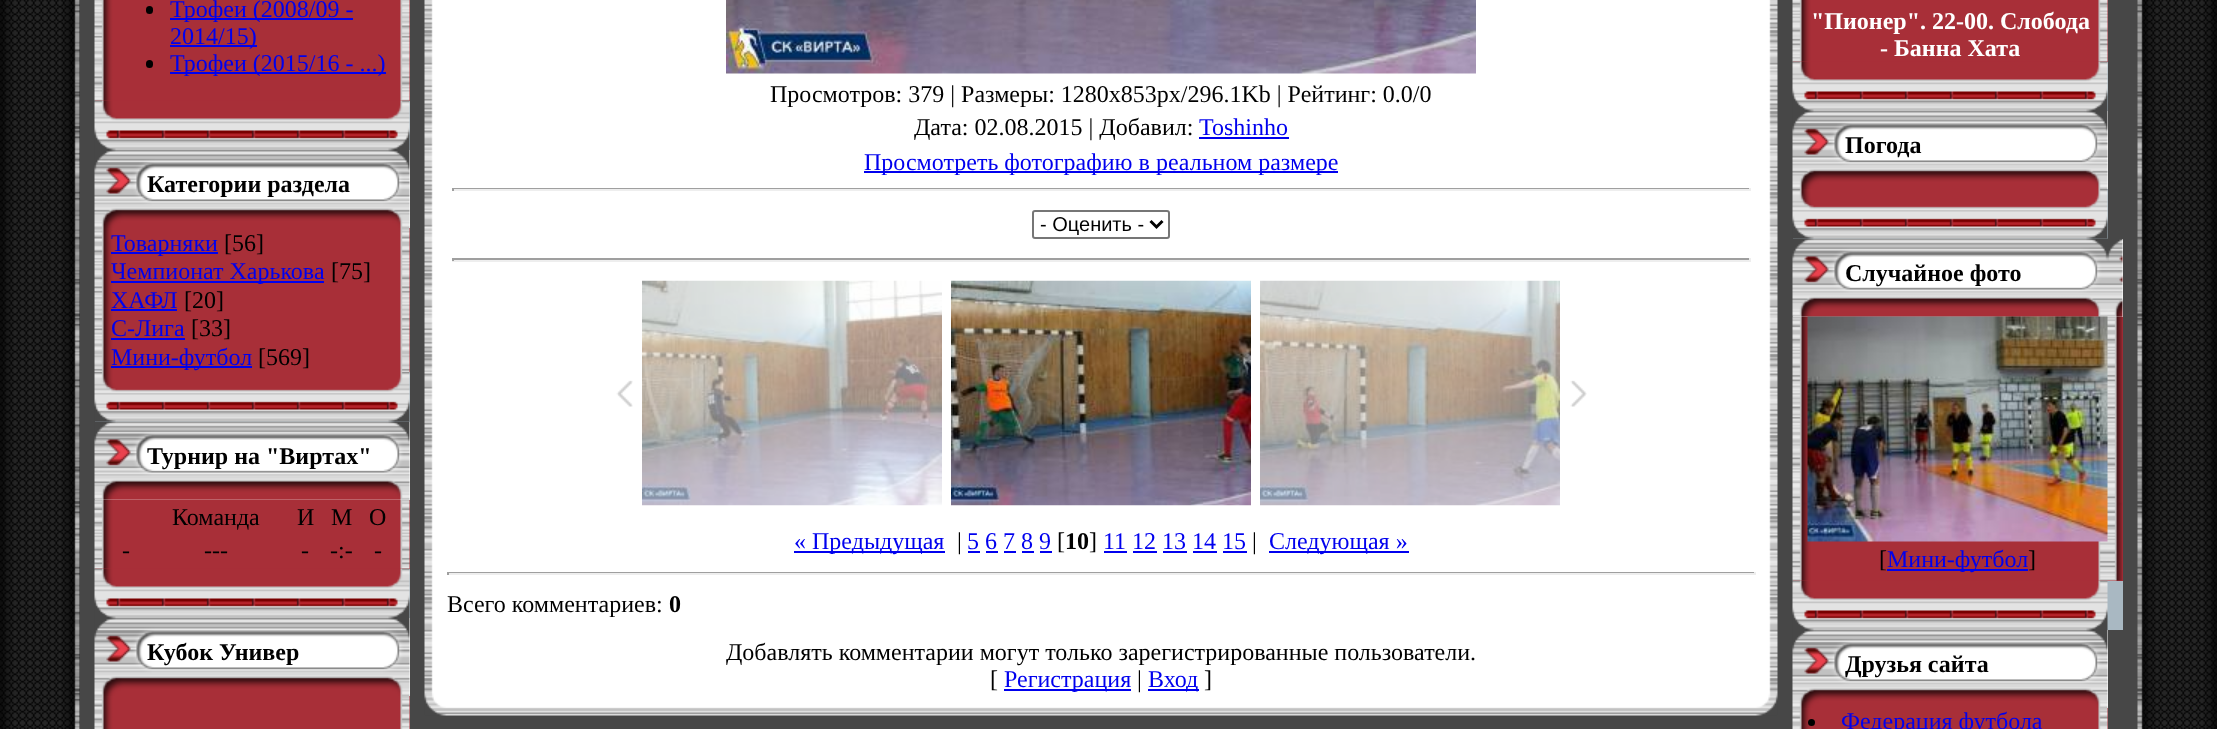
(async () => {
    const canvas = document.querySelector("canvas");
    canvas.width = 2217;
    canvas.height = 729;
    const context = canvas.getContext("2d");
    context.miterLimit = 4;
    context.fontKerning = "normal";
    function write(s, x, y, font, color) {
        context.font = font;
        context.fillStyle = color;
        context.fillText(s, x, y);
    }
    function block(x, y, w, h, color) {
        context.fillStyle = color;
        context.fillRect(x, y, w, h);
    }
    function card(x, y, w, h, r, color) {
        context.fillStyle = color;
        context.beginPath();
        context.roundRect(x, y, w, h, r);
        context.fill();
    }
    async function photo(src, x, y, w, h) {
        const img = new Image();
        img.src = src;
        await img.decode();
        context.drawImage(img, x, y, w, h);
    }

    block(0, 0, 2217, 729, "rgb(71, 71, 71)");
    block(79, 0, 1, 729, "rgb(37, 37, 37)");
    await photo("media/1.png", 0, 0, 80, 729);
    block(409, 101, 1, 49, "rgb(169, 184, 194)");
    block(95, 0, 315, 101, "rgb(168, 47, 56)");
    await photo("media/2.png", 94, 0, 316, 101);
    card(146, 6, 7, 8, 3.5, "rgb(0, 0, 0)");
    block(170, 18, 183, 2, "rgb(0, 0, 238)");
    write("Трофеи (2008/09 -", 170, 17, "24px Liberation Serif", "rgb(0, 0, 238)");
    block(170, 45, 87, 2, "rgb(0, 0, 238)");
    write("2014/15)", 170, 44, "24px Liberation Serif", "rgb(0, 0, 238)");
    card(146, 60, 7, 8, 3.5, "rgb(0, 0, 0)");
    block(170, 72, 216, 2, "rgb(0, 0, 238)");
    write("Трофеи (2015/16 - ...)", 170, 71, "24px Liberation Serif", "rgb(0, 0, 238)");
    await photo("media/3.png", 94, 100, 316, 50);
    block(95, 372, 315, 50, "rgb(169, 184, 194)");
    block(409, 150, 1, 78, "rgb(255, 255, 255)");
    await photo("media/4.png", 94, 150, 316, 78);
    write("Категории раздела", 147, 192, "bold 24px Liberation Serif", "rgb(0, 0, 0)");
    block(409, 228, 1, 144, "rgb(168, 47, 56)");
    await photo("media/5.png", 94, 228, 316, 144);
    block(111, 252, 107, 2, "rgb(0, 0, 238)");
    write("Товарняки", 111, 251, "24px Liberation Serif", "rgb(0, 0, 238)");
    write("[56]", 224, 251, "24px Liberation Serif", "rgb(0, 0, 0)");
    block(111, 281, 213, 2, "rgb(0, 0, 238)");
    write("Чемпионат Харькова", 111, 279, "24px Liberation Serif", "rgb(0, 0, 238)");
    write("[75]", 331, 279, "24px Liberation Serif", "rgb(0, 0, 0)");
    write("ХАФЛ", 111, 308, "24px Liberation Serif", "rgb(0, 0, 238)");
    block(111, 309, 66, 2, "rgb(0, 0, 238)");
    write("[20]", 184, 308, "24px Liberation Serif", "rgb(0, 0, 0)");
    write("C-Лига", 111, 336, "24px Liberation Serif", "rgb(0, 0, 238)");
    block(111, 338, 74, 2, "rgb(0, 0, 238)");
    write("[33]", 191, 336, "24px Liberation Serif", "rgb(0, 0, 0)");
    block(111, 366, 141, 2, "rgb(0, 0, 238)");
    write("Мини-футбол", 111, 365, "24px Liberation Serif", "rgb(0, 0, 238)");
    write("[569]", 258, 365, "24px Liberation Serif", "rgb(0, 0, 0)");
    block(95, 422, 315, 78, "rgb(255, 255, 255)");
    await photo("media/7.png", 94, 421, 316, 79);
    await photo("media/6.png", 94, 372, 316, 50);
    block(409, 569, 1, 49, "rgb(169, 184, 194)");
    write("Турнир на \"Виртах\"", 147, 464, "bold 24px Liberation Serif", "rgb(0, 0, 0)");
    block(95, 500, 315, 69, "rgb(168, 47, 56)");
    await photo("media/8.png", 94, 499, 316, 70);
    write("Команда", 172, 525, "24px Liberation Serif", "rgb(0, 0, 0)");
    write("И", 297, 525, "24px Liberation Serif", "rgb(0, 0, 0)");
    write("М", 331, 525, "24px Liberation Serif", "rgb(0, 0, 0)");
    write("О", 369, 525, "24px Liberation Serif", "rgb(0, 0, 0)");
    write("-", 122, 558, "24px Liberation Serif", "rgb(0, 0, 0)");
    write("---", 204, 558, "24px Liberation Serif", "rgb(0, 0, 0)");
    write("-", 301, 558, "24px Liberation Serif", "rgb(0, 0, 0)");
    write("-:-", 330, 558, "24px Liberation Serif", "rgb(0, 0, 0)");
    write("-", 374, 558, "24px Liberation Serif", "rgb(0, 0, 0)");
    await photo("media/9.png", 94, 568, 316, 50);
    block(409, 618, 1, 78, "rgb(255, 255, 255)");
    await photo("media/4.png", 94, 618, 316, 78);
    write("Кубок Универ", 147, 660, "bold 24px Liberation Serif", "rgb(0, 0, 0)");
    block(409, 696, 1, 33, "rgb(168, 47, 56)");
    await photo("media/10.png", 94, 696, 316, 33);
    await photo("media/11.png", 424, 0, 23, 693);
    block(447, 0, 1308, 693, "rgb(255, 255, 255)");
    await photo("media/12.png", 726, 0, 750, 74);
    write("Просмотров: 379 | Размеры: 1280x853px/296.1Kb | Рейтинг: 0.0/0", 770, 102, "24px Liberation Serif", "rgb(0, 0, 0)");
    write("Дата: 02.08.2015 | Добавил:", 914, 135, "24px Liberation Serif", "rgb(0, 0, 0)");
    write("Toshinho", 1199, 135, "24px Liberation Serif", "rgb(0, 0, 238)");
    block(1199, 137, 90, 2, "rgb(0, 0, 238)");
    block(864, 171, 474, 2, "rgb(0, 0, 238)");
    write("Просмотреть фотографию в реальном размере", 864, 170, "24px Liberation Serif", "rgb(0, 0, 238)");
    block(452, 188, 1299, 1, "rgb(159, 159, 159)");
    block(1749, 188, 2, 3, "rgb(238, 238, 238)");
    block(452, 189, 1299, 2, "rgb(238, 238, 238)");
    block(452, 188, 2, 3, "rgb(159, 159, 159)");
    context.beginPath();
    context.roundRect(1033, 211, 136, 27, 2);
    context.strokeStyle = "rgb(118, 118, 118)";
    context.lineWidth = 2;
    context.stroke();
    context.beginPath();
    context.moveTo(1150.5, 221);
    context.lineTo(1156.5, 227);
    context.lineTo(1162.5, 221);
    context.strokeStyle = "rgb(0, 0, 0)";
    context.lineWidth = 3;
    context.stroke();
    write("- Оценить -", 1040, 231, "20px Liberation Sans", "rgb(0, 0, 0)");
    block(452, 258, 1299, 2, "rgb(159, 159, 159)");
    block(1749, 258, 2, 3, "rgb(238, 238, 238)");
    block(452, 260, 1299, 2, "rgb(238, 238, 238)");
    block(452, 258, 2, 3, "rgb(159, 159, 159)");
    await photo("media/13.png", 616, 380, 17, 27);
    await photo("media/14.png", 642, 280, 300, 226);
    await photo("media/15.png", 951, 280, 300, 226);
    await photo("media/16.png", 1260, 280, 300, 226);
    await photo("media/17.png", 1570, 380, 17, 27);
    block(794, 551, 151, 2, "rgb(0, 0, 238)");
    write("« Предыдущая", 794, 549, "24px Liberation Serif", "rgb(0, 0, 238)");
    write("|", 957, 549, "24px Liberation Serif", "rgb(0, 0, 0)");
    write("5 6 7 8 9", 967, 549, "24px Liberation Serif", "rgb(0, 0, 238)");
    block(968, 551, 12, 2, "rgb(0, 0, 238)");
    write("[", 1057, 549, "24px Liberation Serif", "rgb(0, 0, 0)");
    write("10", 1065, 549, "bold 24px Liberation Serif", "rgb(0, 0, 0)");
    write("]", 1089, 549, "24px Liberation Serif", "rgb(0, 0, 0)");
    write("11 12 13 14 15", 1103, 549, "24px Liberation Serif", "rgb(0, 0, 238)");
    block(1104, 551, 23, 2, "rgb(0, 0, 238)");
    write("|", 1252, 549, "24px Liberation Serif", "rgb(0, 0, 0)");
    block(1269, 551, 140, 2, "rgb(0, 0, 238)");
    write("Следующая »", 1269, 549, "24px Liberation Serif", "rgb(0, 0, 238)");
    block(986, 551, 12, 2, "rgb(0, 0, 238)");
    block(1004, 551, 12, 2, "rgb(0, 0, 238)");
    block(1022, 551, 12, 2, "rgb(0, 0, 238)");
    block(1040, 551, 12, 2, "rgb(0, 0, 238)");
    block(1133, 551, 24, 2, "rgb(0, 0, 238)");
    block(1163, 551, 24, 2, "rgb(0, 0, 238)");
    block(1193, 551, 24, 2, "rgb(0, 0, 238)");
    block(1223, 551, 24, 2, "rgb(0, 0, 238)");
    block(447, 572, 1308, 1, "rgb(159, 159, 159)");
    await photo("media/18.png", 1755, 0, 23, 693);
    block(1754, 572, 2, 3, "rgb(238, 238, 238)");
    block(447, 573, 1308, 2, "rgb(238, 238, 238)");
    block(447, 572, 2, 3, "rgb(159, 159, 159)");
    write("Всего комментариев:", 447, 612, "24px Liberation Serif", "rgb(0, 0, 0)");
    write("0", 669, 612, "bold 24px Liberation Serif", "rgb(0, 0, 0)");
    write("Добавлять комментарии могут только зарегистрированные пользователи.", 726, 660, "24px Liberation Serif", "rgb(0, 0, 0)");
    write("[", 990, 687, "24px Liberation Serif", "rgb(0, 0, 0)");
    block(1004, 689, 127, 2, "rgb(0, 0, 238)");
    write("Регистрация", 1004, 687, "24px Liberation Serif", "rgb(0, 0, 238)");
    write("|", 1137, 687, "24px Liberation Serif", "rgb(0, 0, 0)");
    block(1148, 689, 51, 2, "rgb(0, 0, 238)");
    write("Вход", 1148, 687, "24px Liberation Serif", "rgb(0, 0, 238)");
    write("]", 1204, 687, "24px Liberation Serif", "rgb(0, 0, 0)");
    await photo("media/19.png", 424, 693, 23, 23);
    await photo("media/20.png", 447, 693, 1308, 23);
    await photo("media/21.png", 1755, 693, 23, 23);
    block(2107, 62, 1, 49, "rgb(169, 184, 194)");
    block(1793, 0, 315, 62, "rgb(168, 47, 56)");
    await photo("media/22.png", 1792, 0, 316, 62);
    write("\"Пионер\". 22-00. Слобода", 1811, 29, "bold 24px Liberation Serif", "rgb(255, 255, 255)");
    write("- Банна Хата", 1880, 56, "bold 24px Liberation Serif", "rgb(255, 255, 255)");
    await photo("media/23.png", 1792, 61, 316, 50);
    block(1793, 189, 315, 50, "rgb(169, 184, 194)");
    block(2107, 111, 1, 78, "rgb(255, 255, 255)");
    await photo("media/4.png", 1792, 111, 316, 78);
    write("Погода", 1845, 153, "bold 24px Liberation Serif", "rgb(0, 0, 0)");
    block(1793, 239, 330, 78, "rgb(255, 255, 255)");
    await photo("media/25.png", 1792, 238, 331, 79);
    await photo("media/24.png", 1792, 189, 316, 50);
    block(2107, 581, 16, 49, "rgb(169, 184, 194)");
    write("Случайное фото", 1845, 281, "bold 24px Liberation Serif", "rgb(0, 0, 0)");
    block(1793, 317, 330, 264, "rgb(168, 47, 56)");
    await photo("media/26.png", 1792, 316, 331, 265);
    await photo("media/27.png", 1807, 316, 301, 226);
    write("[", 1879, 567, "24px Liberation Serif", "rgb(0, 0, 0)");
    block(1887, 569, 141, 2, "rgb(0, 0, 238)");
    write("Мини-футбол", 1887, 567, "24px Liberation Serif", "rgb(0, 0, 238)");
    write("]", 2028, 567, "24px Liberation Serif", "rgb(0, 0, 0)");
    await photo("media/28.png", 1792, 580, 316, 50);
    block(2107, 630, 1, 78, "rgb(255, 255, 255)");
    await photo("media/4.png", 1792, 630, 316, 78);
    write("Друзья сайта", 1845, 672, "bold 24px Liberation Serif", "rgb(0, 0, 0)");
    block(2107, 708, 1, 21, "rgb(168, 47, 56)");
    await photo("media/29.png", 1792, 708, 316, 21);
    context.fillStyle = "rgb(0, 0, 0)";
    context.beginPath();
    context.arc(1811.5, 722.5, 3.5, 0, Math.PI * 2);
    context.fill();
    write("Федерация футбола", 1841, 729, "24px Liberation Serif", "rgb(0, 0, 238)");
    await photo("media/30.png", 2137, 0, 80, 729);
})();
